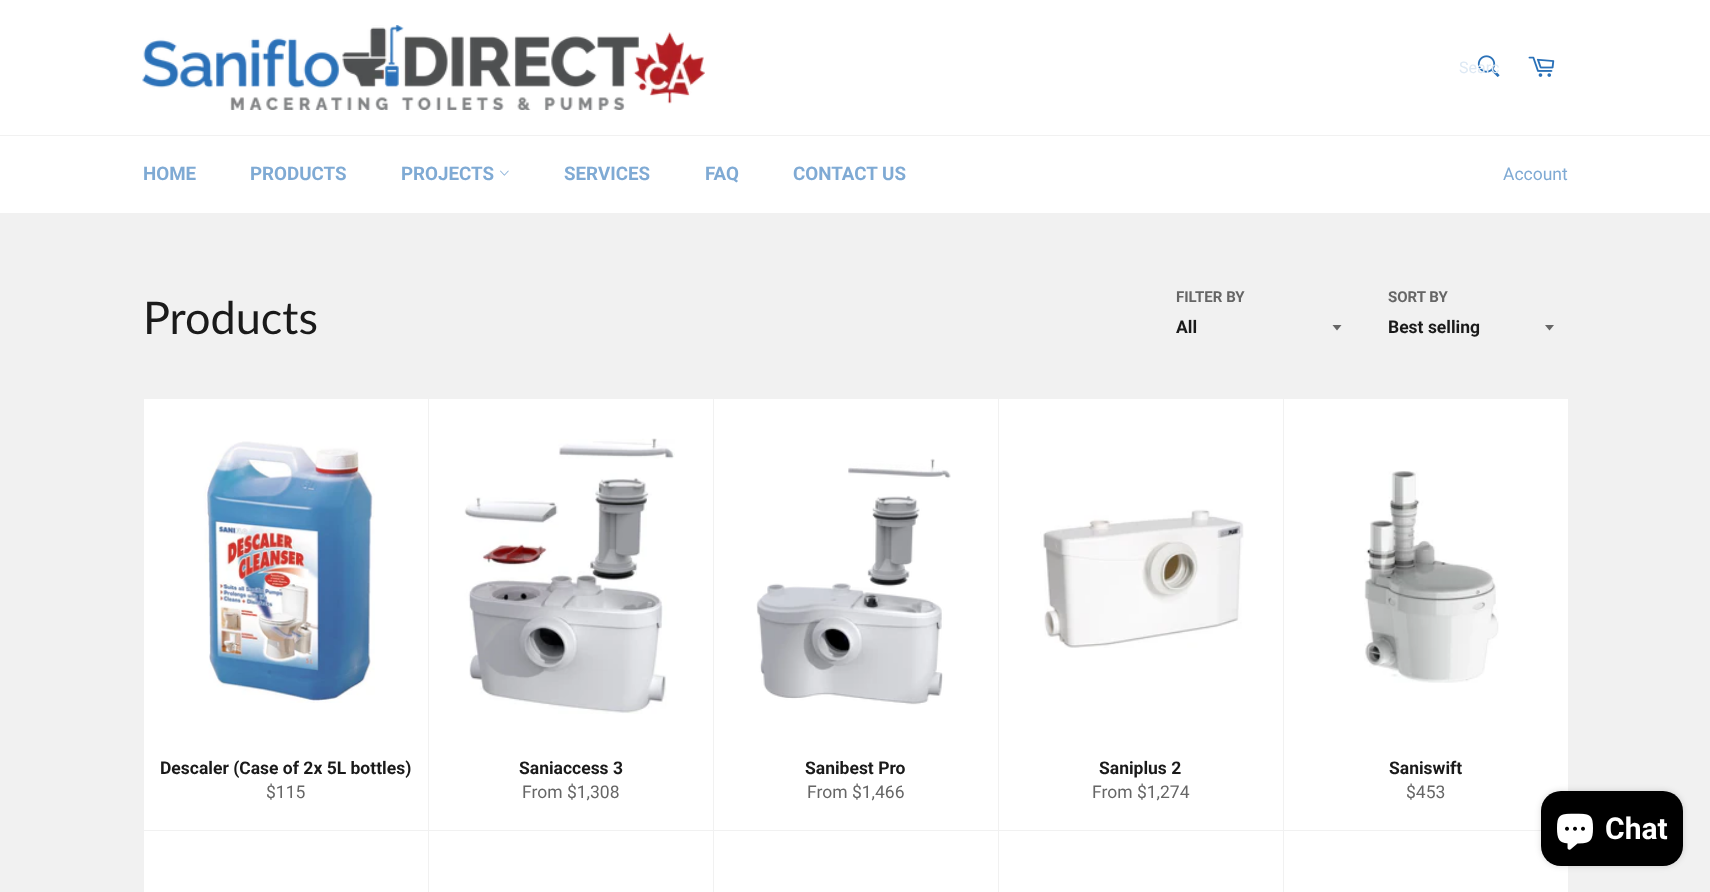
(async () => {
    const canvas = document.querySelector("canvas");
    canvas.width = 1710;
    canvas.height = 892;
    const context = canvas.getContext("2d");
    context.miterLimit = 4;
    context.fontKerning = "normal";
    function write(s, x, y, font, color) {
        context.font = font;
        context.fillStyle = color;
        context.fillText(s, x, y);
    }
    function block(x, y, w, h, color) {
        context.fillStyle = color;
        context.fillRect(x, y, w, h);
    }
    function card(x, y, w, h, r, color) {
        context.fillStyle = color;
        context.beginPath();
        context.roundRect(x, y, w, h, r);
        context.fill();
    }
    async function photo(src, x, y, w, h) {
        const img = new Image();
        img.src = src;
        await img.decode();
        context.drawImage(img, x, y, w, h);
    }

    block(0, 0, 1710, 892, "rgb(241, 241, 241)");
    block(0, 0, 1710, 135, "rgb(255, 255, 255)");
    await photo("media/1.png", 142, 25, 563, 85);
    await photo("media/2.png", 1477, 55, 23, 22);
    write("Searc", 1459, 73, "16px Roboto", "rgb(222, 233, 244)");
    await photo("media/3.png", 1528, 56, 27, 21);
    block(0, 136, 1710, 77, "rgb(255, 255, 255)");
    write("HOME", 143, 180, "bold 18.75px Roboto", "rgb(127, 170, 212)");
    write("PRODUCTS", 250, 180, "bold 18.75px Roboto", "rgb(127, 170, 212)");
    write("PROJECTS", 401, 180, "bold 18.75px Roboto", "rgb(127, 170, 212)");
    await photo("media/4.png", 500, 170, 9, 6);
    write("SERVICES", 564, 180, "bold 18.75px Roboto", "rgb(127, 170, 212)");
    write("FAQ", 705, 180, "bold 18.75px Roboto", "rgb(127, 170, 212)");
    write("CONTACT US", 793, 180, "bold 18.75px Roboto", "rgb(127, 170, 212)");
    write("Account", 1503, 180, "17.5px Roboto", "rgb(127, 170, 212)");
    write("Products", 143, 334, "45px Lato", "rgb(26, 26, 26)");
    write("FILTER BY", 1176, 302, "bold 15px Roboto", "rgb(102, 102, 102)");
    context.beginPath();
    context.moveTo(1332.5, 325);
    context.lineTo(1337, 330.5);
    context.lineTo(1341.5, 325);
    context.closePath();
    context.fill();
    write("All", 1176, 333, "bold 17.5px Roboto", "rgb(26, 26, 26)");
    write("SORT BY", 1388, 302, "bold 15px Roboto", "rgb(102, 102, 102)");
    context.beginPath();
    context.moveTo(1545, 325);
    context.lineTo(1549.5, 330.5);
    context.lineTo(1554, 325);
    context.closePath();
    context.fill();
    write("Best selling", 1388, 333, "bold 17.5px Roboto", "rgb(26, 26, 26)");
    block(144, 399, 284, 431, "rgb(255, 255, 255)");
    await photo("media/5.png", 203, 441, 172, 262);
    write("Descaler (Case of 2x 5L bottles)", 160, 774, "bold 17.5px Roboto", "rgb(26, 26, 26)");
    write("$115", 266, 798, "17.5px Roboto", "rgb(102, 102, 102)");
    block(429, 399, 284, 431, "rgb(255, 255, 255)");
    await photo("media/6.png", 464, 438, 211, 276);
    write("Saniaccess 3", 519, 774, "bold 17.5px Roboto", "rgb(26, 26, 26)");
    write("From $1,308", 522, 798, "17.5px Roboto", "rgb(102, 102, 102)");
    block(714, 399, 284, 431, "rgb(255, 255, 255)");
    await photo("media/7.png", 756, 458, 195, 247);
    write("Sanibest Pro", 805, 774, "bold 17.5px Roboto", "rgb(26, 26, 26)");
    write("From $1,466", 807, 798, "17.5px Roboto", "rgb(102, 102, 102)");
    block(999, 399, 284, 431, "rgb(255, 255, 255)");
    await photo("media/8.png", 1040, 509, 204, 139);
    write("Saniplus 2", 1099, 774, "bold 17.5px Roboto", "rgb(26, 26, 26)");
    write("From $1,274", 1092, 798, "17.5px Roboto", "rgb(102, 102, 102)");
    block(1284, 399, 284, 431, "rgb(255, 255, 255)");
    await photo("media/9.png", 1364, 471, 135, 212);
    write("Saniswift", 1389, 774, "bold 17.5px Roboto", "rgb(26, 26, 26)");
    write("$453", 1406, 798, "17.5px Roboto", "rgb(102, 102, 102)");
    block(144, 831, 284, 61, "rgb(255, 255, 255)");
    block(429, 831, 284, 61, "rgb(255, 255, 255)");
    block(714, 831, 284, 61, "rgb(255, 255, 255)");
    block(999, 831, 284, 61, "rgb(255, 255, 255)");
    block(1284, 831, 284, 61, "rgb(255, 255, 255)");
    context.fillStyle = "rgba(0, 0, 0, 0.15)";
    context.filter = "blur(3px)";
    context.beginPath();
    context.roundRect(1541, 791, 142, 75, 20);
    context.fill();
    context.filter = "none";
    card(1541, 791, 142, 75, 20, "rgb(0, 0, 0)");
    await photo("media/10.png", 1557, 813, 36, 37);
    write("Chat", 1605, 839, "bold 30px Roboto", "rgb(255, 255, 255)");
})();
